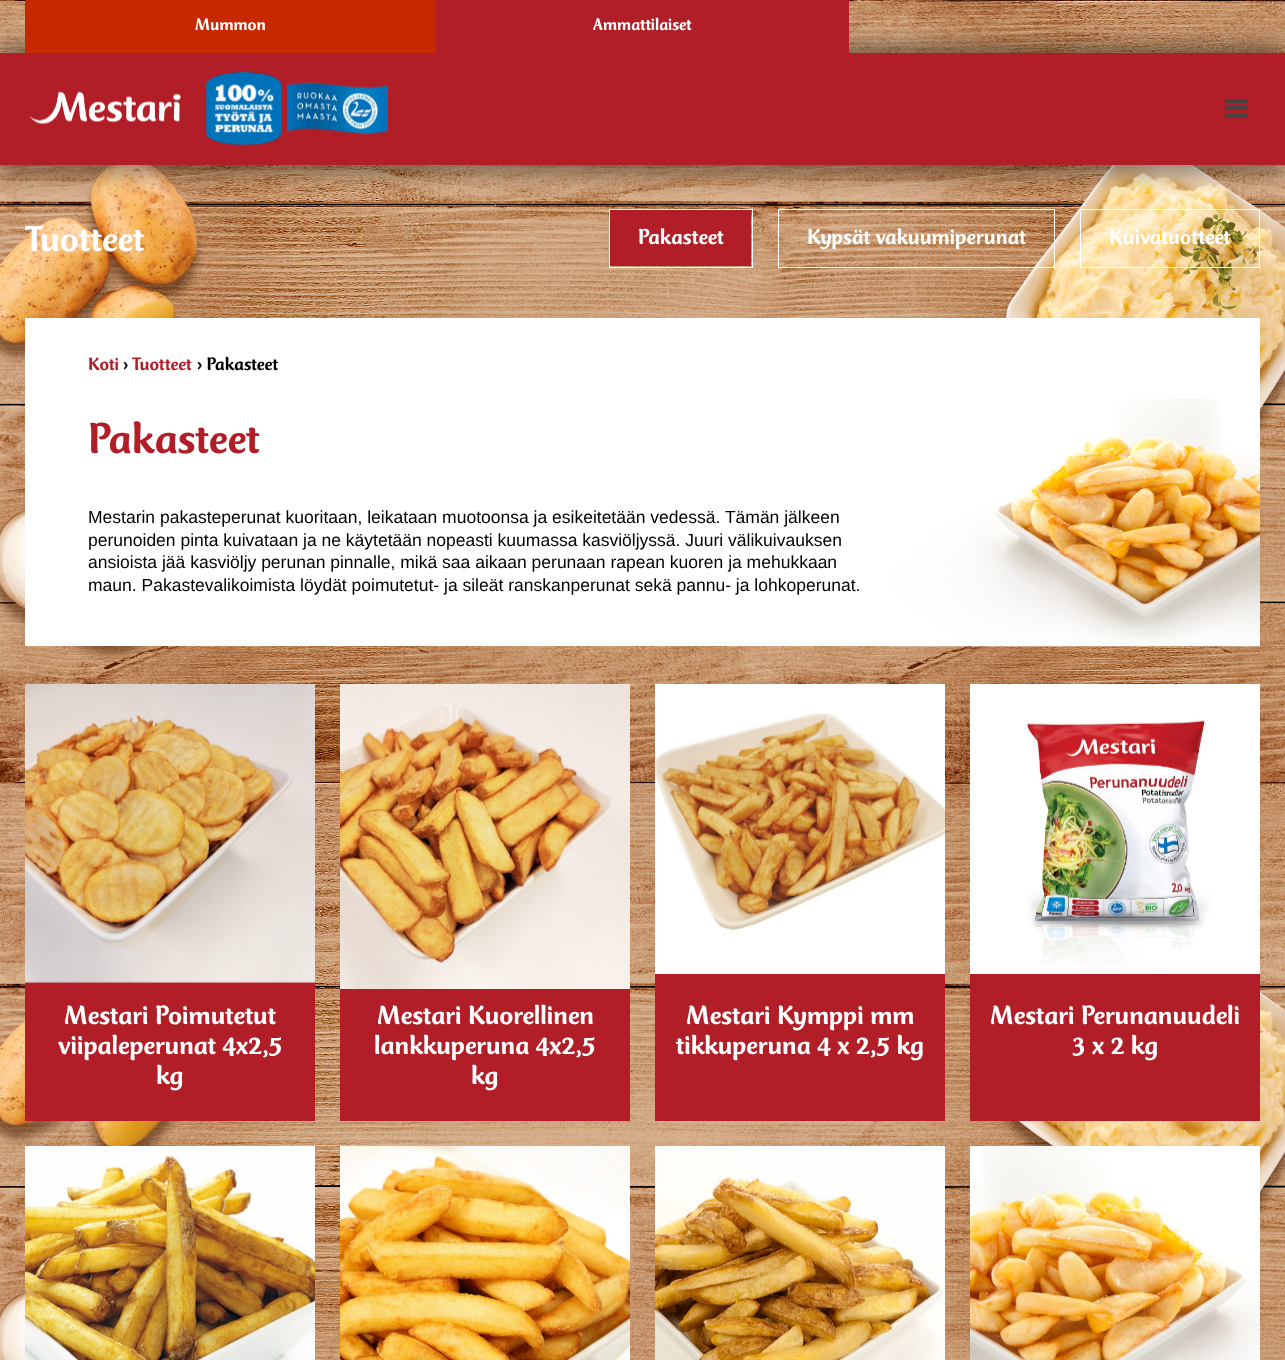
(async () => {
    const canvas = document.querySelector("canvas");
    canvas.width = 1285;
    canvas.height = 1360;
    const context = canvas.getContext("2d");
    context.miterLimit = 4;
    context.fontKerning = "normal";
    function write(s, x, y, font, color) {
        context.font = font;
        context.fillStyle = color;
        context.fillText(s, x, y);
    }
    function block(x, y, w, h, color) {
        context.fillStyle = color;
        context.fillRect(x, y, w, h);
    }
    function card(x, y, w, h, r, color) {
        context.fillStyle = color;
        context.beginPath();
        context.roundRect(x, y, w, h, r);
        context.fill();
    }
    async function photo(src, x, y, w, h) {
        const img = new Image();
        img.src = src;
        await img.decode();
        context.drawImage(img, x, y, w, h);
    }

    block(0, 0, 1285, 1360, "rgb(255, 255, 255)");
    await photo("media/1.png", 0, 0, 1285, 1360);
    context.fillStyle = "rgba(0, 0, 0, 0.35)";
    context.filter = "blur(10px)";
    context.beginPath();
    context.rect(0, 43, 1285, 112);
    context.fill();
    context.filter = "none";
    context.filter = "blur(10px)";
    context.beginPath();
    context.rect(0, 63, 1285, 112);
    context.fill();
    context.filter = "none";
    block(0, 53, 1285, 112, "rgb(178, 30, 39)");
    await photo("media/2.png", 29, 91, 152, 34);
    await photo("media/3.png", 206, 72, 76, 74);
    await photo("media/4.png", 287, 82, 101, 53);
    card(1225, 99, 23, 4, 2, "rgb(68, 68, 68)");
    card(1225, 106, 23, 4, 2, "rgb(68, 68, 68)");
    card(1225, 114, 23, 4, 2, "rgb(68, 68, 68)");
    block(25, 0, 411, 53, "rgb(200, 40, 0)");
    write("Mummon", 195, 30, "500 17.5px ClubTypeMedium", "rgb(255, 255, 255)");
    block(436, 0, 413, 53, "rgb(178, 30, 39)");
    write("Ammattilaiset", 593, 30, "500 17.5px ClubTypeMedium", "rgb(255, 255, 255)");
    write("Tuotteet", 25, 251, "500 37.5px ClubTypeMedium", "rgb(255, 255, 255)");
    context.strokeStyle = "rgb(255, 255, 255)";
    context.strokeRect(609.5, 209.5, 143, 58);
    block(610, 210, 141, 56, "rgb(178, 30, 39)");
    write("Pakasteet", 638, 244, "500 22.5px ClubTypeMedium", "rgb(255, 255, 255)");
    context.strokeRect(778.5, 209.5, 276, 58);
    write("Kypsät vakuumiperunat", 807, 244, "500 22.5px ClubTypeMedium", "rgb(255, 255, 255)");
    context.strokeRect(1080.5, 209.5, 179, 58);
    write("Kuivatuotteet", 1109, 244, "500 22.5px ClubTypeMedium", "rgb(255, 255, 255)");
    block(25, 318, 1235, 328, "rgb(255, 255, 255)");
    await photo("media/5.png", 890, 399, 370, 248);
    write("Koti", 88, 370, "500 18.75px ClubTypeMedium", "rgb(178, 30, 39)");
    write("›", 123, 370, "500 18.75px ClubTypeMedium", "rgb(0, 0, 0)");
    write("Tuotteet", 132, 370, "500 18.75px ClubTypeMedium", "rgb(178, 30, 39)");
    write("› Pakasteet", 197, 370, "500 18.75px ClubTypeMedium", "rgb(0, 0, 0)");
    write("Pakasteet", 88, 453, "500 45px ClubTypeMedium", "rgb(178, 30, 39)");
    write("Mestarin pakasteperunat kuoritaan, leikataan muotoonsa ja esikeitetään vedessä. Tämän jälkeen", 88, 523, "17.5px Liberation Sans", "rgb(0, 0, 0)");
    write("perunoiden pinta kuivataan ja ne käytetään nopeasti kuumassa kasviöljyssä. Juuri välikuivauksen", 88, 546, "17.5px Liberation Sans", "rgb(0, 0, 0)");
    write("ansioista jää kasviöljy perunan pinnalle, mikä saa aikaan perunaan rapean kuoren ja mehukkaan", 88, 568, "17.5px Liberation Sans", "rgb(0, 0, 0)");
    write("maun. Pakastevalikoimista löydät poimutetut- ja sileät ranskanperunat sekä pannu- ja lohkoperunat.", 88, 591, "17.5px Liberation Sans", "rgb(0, 0, 0)");
    block(25, 981, 290, 140, "rgb(178, 30, 39)");
    await photo("media/6.png", 25, 684, 290, 299);
    write("Mestari Poimutetut", 64, 1024, "500 27.5px ClubTypeMedium", "rgb(255, 255, 255)");
    write("viipaleperunat 4x2,5", 58, 1054, "500 27.5px ClubTypeMedium", "rgb(255, 255, 255)");
    write("kg", 156, 1084, "500 27.5px ClubTypeMedium", "rgb(255, 255, 255)");
    block(340, 989, 290, 132, "rgb(178, 30, 39)");
    await photo("media/7.png", 340, 684, 290, 305);
    write("Mestari Kuorellinen", 377, 1024, "500 27.5px ClubTypeMedium", "rgb(255, 255, 255)");
    write("lankkuperuna 4x2,5", 374, 1054, "500 27.5px ClubTypeMedium", "rgb(255, 255, 255)");
    write("kg", 471, 1084, "500 27.5px ClubTypeMedium", "rgb(255, 255, 255)");
    block(655, 974, 290, 147, "rgb(178, 30, 39)");
    await photo("media/8.png", 655, 684, 290, 290);
    write("Mestari Kymppi mm", 686, 1024, "500 27.5px ClubTypeMedium", "rgb(255, 255, 255)");
    write("tikkuperuna 4 x 2,5 kg", 676, 1054, "500 27.5px ClubTypeMedium", "rgb(255, 255, 255)");
    block(970, 974, 290, 147, "rgb(178, 30, 39)");
    await photo("media/9.png", 970, 684, 290, 290);
    write("Mestari Perunanuudeli", 990, 1024, "500 27.5px ClubTypeMedium", "rgb(255, 255, 255)");
    write("3 x 2 kg", 1072, 1054, "500 27.5px ClubTypeMedium", "rgb(255, 255, 255)");
    await photo("media/10.png", 25, 1146, 290, 214);
    await photo("media/11.png", 340, 1146, 290, 214);
    await photo("media/12.png", 655, 1146, 290, 214);
    await photo("media/13.png", 970, 1146, 290, 214);
})();
